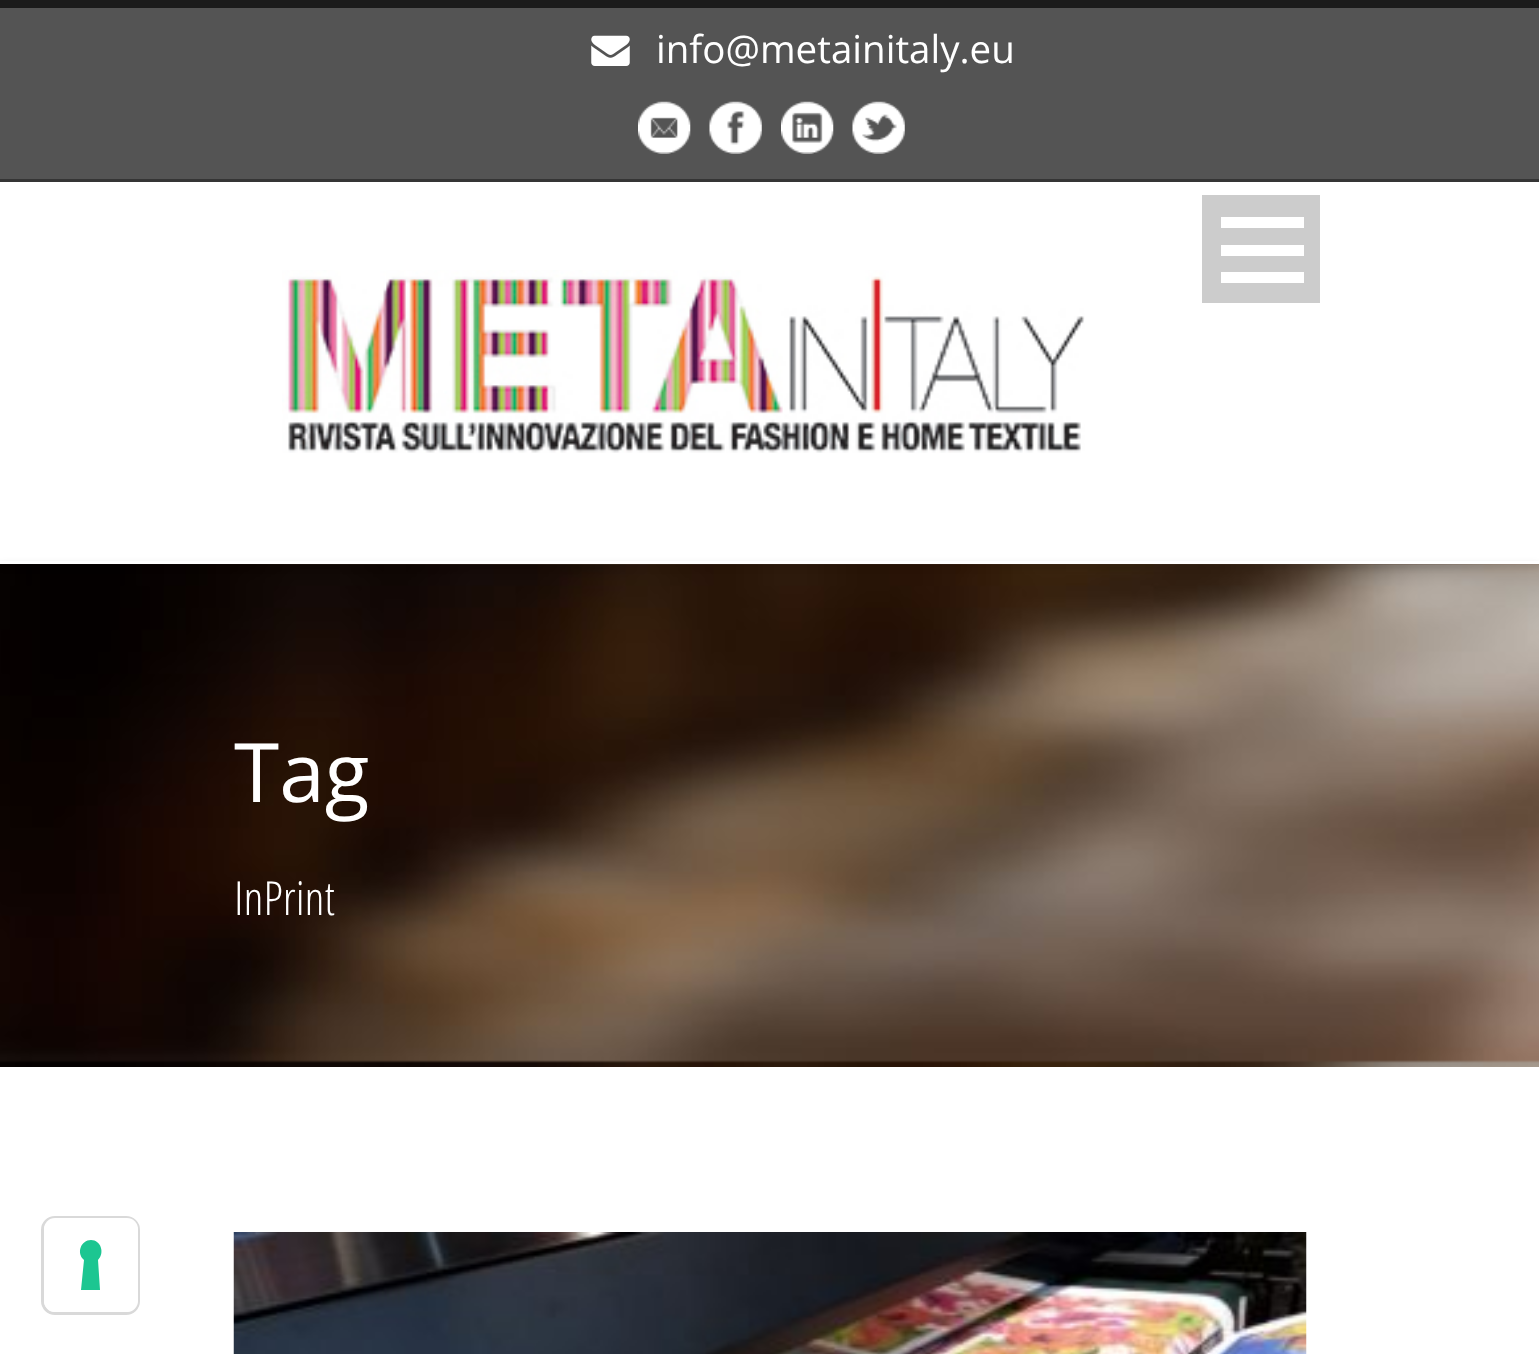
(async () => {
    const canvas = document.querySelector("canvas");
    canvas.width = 1539;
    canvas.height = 1354;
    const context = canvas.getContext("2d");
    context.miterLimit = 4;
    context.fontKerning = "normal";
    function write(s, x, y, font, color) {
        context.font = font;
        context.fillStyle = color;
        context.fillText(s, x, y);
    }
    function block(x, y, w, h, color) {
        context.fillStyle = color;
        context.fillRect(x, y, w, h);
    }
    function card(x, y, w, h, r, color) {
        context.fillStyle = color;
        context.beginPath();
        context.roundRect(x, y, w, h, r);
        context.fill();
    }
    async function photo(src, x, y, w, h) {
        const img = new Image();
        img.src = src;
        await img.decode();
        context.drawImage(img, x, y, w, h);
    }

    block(0, 0, 1539, 1354, "rgb(255, 255, 255)");
    block(0, 8, 1539, 171, "rgb(84, 84, 84)");
    block(0, 0, 1539, 8, "rgb(27, 27, 27)");
    block(0, 179, 1539, 3, "rgb(53, 53, 53)");
    await photo("media/1.png", 591, 35, 39, 31);
    write("info@metainitaly.eu", 656, 63, "38.5px Open Sans", "rgb(255, 255, 255)");
    await photo("media/2.png", 638, 101, 53, 53);
    await photo("media/3.png", 709, 101, 53, 53);
    await photo("media/4.png", 781, 101, 53, 53);
    await photo("media/5.png", 852, 101, 53, 53);
    block(1202, 195, 118, 108, "rgb(204, 204, 204)");
    block(1221, 272, 83, 11, "rgb(255, 255, 255)");
    block(1221, 245, 83, 11, "rgb(255, 255, 255)");
    block(1221, 217, 83, 11, "rgb(255, 255, 255)");
    await photo("media/6.png", 282, 270, 803, 183);
    await photo("media/7.png", 0, 564, 1539, 503);
    context.fillStyle = "rgba(0, 0, 0, 0.15)";
    context.filter = "blur(3px)";
    context.beginPath();
    context.rect(0, 564, 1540, 3);
    context.fill();
    context.filter = "none";
    block(0, 561, 1539, 3, "rgb(255, 255, 255)");
    write("Tag", 234, 802, "82px Open Sans", "rgb(255, 255, 255)");
    write("InPrint", 234, 915, "300 47px Open Sans Condensed", "rgb(255, 255, 255)");
    await photo("media/8.png", 233, 1232, 1074, 122);
    context.beginPath();
    context.roundRect(42.5, 1217.5, 96, 96, 12.5);
    context.strokeStyle = "rgb(217, 217, 217)";
    context.lineWidth = 3;
    context.stroke();
    card(44, 1218, 94, 94, 11, "rgb(255, 255, 255)");
    context.fillStyle = "rgb(28, 198, 145)";
    context.beginPath();
    context.moveTo(91, 1240);
    context.bezierCurveTo(101, 1240, 105, 1253, 98, 1260);
    context.lineTo(100, 1290);
    context.lineTo(81, 1290);
    context.lineTo(84, 1260);
    context.bezierCurveTo(76, 1253, 81, 1240, 91, 1240);
    context.closePath();
    context.fill("evenodd");
})();
